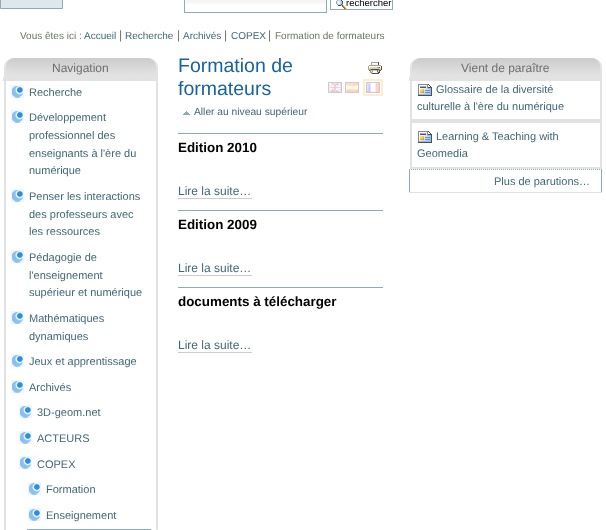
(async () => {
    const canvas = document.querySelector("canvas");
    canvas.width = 606;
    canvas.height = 530;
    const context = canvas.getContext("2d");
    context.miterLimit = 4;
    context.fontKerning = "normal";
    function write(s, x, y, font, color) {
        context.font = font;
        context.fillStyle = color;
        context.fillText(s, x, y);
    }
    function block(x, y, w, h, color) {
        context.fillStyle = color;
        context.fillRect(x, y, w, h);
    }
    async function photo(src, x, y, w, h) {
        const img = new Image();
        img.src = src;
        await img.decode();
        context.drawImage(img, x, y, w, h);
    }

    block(0, 0, 606, 530, "rgb(255, 255, 255)");
    context.fillStyle = "rgb(222, 231, 236)";
    context.beginPath();
    context.rect(0.5, -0.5, 62, 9);
    context.fill();
    context.strokeStyle = "rgb(140, 172, 187)";
    context.stroke();
    await photo("media/1.png", 185, 0, 141, 4);
    context.strokeRect(184.5, -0.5, 142, 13);
    await photo("media/2.png", 336, 0, 11, 9);
    context.strokeRect(330.5, -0.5, 62, 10);
    write("rechercher", 346, 6, "9.5px Liberation Sans", "rgb(0, 0, 0)");
    write("Vous êtes ici :", 20, 39, "10px Liberation Sans", "rgb(104, 119, 100)");
    write("Accueil", 84, 39, "10px Liberation Sans", "rgb(67, 105, 118)");
    write("|", 119, 39, "12px Liberation Sans", "rgb(104, 119, 100)");
    write("Recherche", 125, 39, "10px Liberation Sans", "rgb(67, 105, 118)");
    write("|", 177, 39, "12px Liberation Sans", "rgb(104, 119, 100)");
    write("Archivés", 183, 39, "10px Liberation Sans", "rgb(67, 105, 118)");
    write("|", 224, 39, "12px Liberation Sans", "rgb(104, 119, 100)");
    write("COPEX", 231, 39, "10px Liberation Sans", "rgb(67, 105, 118)");
    write("|", 268, 39, "12px Liberation Sans", "rgb(104, 119, 100)");
    write("Formation de formateurs", 275, 39, "10px Liberation Sans", "rgb(104, 119, 100)");
    context.strokeStyle = "rgb(226, 226, 226)";
    context.lineWidth = 2;
    context.strokeRect(5, 58, 152, 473);
    await photo("media/3.png", 3, 57, 155, 24);
    await photo("media/4.png", 3, 58, 10, 19);
    write("Navigation", 52, 72, "12px Liberation Sans", "rgb(110, 110, 110)");
    await photo("media/5.png", 11, 85, 13, 13);
    write("Recherche", 29, 96, "11px Liberation Sans", "rgb(67, 105, 118)");
    await photo("media/5.png", 11, 110, 13, 13);
    write("Développement", 29, 121, "11px Liberation Sans", "rgb(67, 105, 118)");
    write("professionnel des", 29, 139, "11px Liberation Sans", "rgb(67, 105, 118)");
    write("enseignants à l'ère du", 29, 157, "11px Liberation Sans", "rgb(67, 105, 118)");
    write("numérique", 29, 174, "11px Liberation Sans", "rgb(67, 105, 118)");
    await photo("media/5.png", 11, 189, 13, 13);
    write("Penser les interactions", 29, 200, "11px Liberation Sans", "rgb(67, 105, 118)");
    write("des professeurs avec", 29, 218, "11px Liberation Sans", "rgb(67, 105, 118)");
    write("les ressources", 29, 235, "11px Liberation Sans", "rgb(67, 105, 118)");
    await photo("media/5.png", 11, 250, 13, 13);
    write("Pédagogie de", 29, 261, "11px Liberation Sans", "rgb(67, 105, 118)");
    write("l'enseignement", 29, 279, "11px Liberation Sans", "rgb(67, 105, 118)");
    write("supérieur et numérique", 29, 296, "11px Liberation Sans", "rgb(67, 105, 118)");
    await photo("media/5.png", 11, 311, 13, 13);
    write("Mathématiques", 29, 322, "11px Liberation Sans", "rgb(67, 105, 118)");
    write("dynamiques", 29, 340, "11px Liberation Sans", "rgb(67, 105, 118)");
    await photo("media/5.png", 11, 354, 13, 13);
    write("Jeux et apprentissage", 29, 365, "11px Liberation Sans", "rgb(67, 105, 118)");
    await photo("media/5.png", 11, 380, 13, 13);
    write("Archivés", 29, 391, "11px Liberation Sans", "rgb(67, 105, 118)");
    await photo("media/5.png", 19, 405, 13, 13);
    write("3D-geom.net", 37, 416, "11px Liberation Sans", "rgb(67, 105, 118)");
    await photo("media/5.png", 19, 431, 13, 13);
    write("ACTEURS", 37, 442, "11px Liberation Sans", "rgb(67, 105, 118)");
    await photo("media/5.png", 19, 456, 13, 13);
    write("COPEX", 37, 468, "11px Liberation Sans", "rgb(67, 105, 118)");
    await photo("media/5.png", 28, 482, 13, 13);
    write("Formation", 46, 493, "11px Liberation Sans", "rgb(67, 105, 118)");
    await photo("media/5.png", 28, 508, 13, 13);
    write("Enseignement", 46, 519, "11px Liberation Sans", "rgb(67, 105, 118)");
    context.strokeStyle = "rgb(140, 172, 187)";
    context.lineWidth = 1;
    context.strokeRect(27.5, 529.5, 123, 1);
    write("Formation de", 178, 72, "19.5px Liberation Sans", "rgb(23, 99, 162)");
    write("formateurs", 178, 95, "19.5px Liberation Sans", "rgb(23, 99, 162)");
    await photo("media/6.png", 368, 62, 14, 12);
    await photo("media/7.png", 328, 82, 14, 11);
    await photo("media/8.png", 345, 82, 14, 11);
    context.strokeStyle = "rgb(255, 237, 204)";
    context.lineWidth = 2;
    context.strokeRect(364, 80, 18, 15);
    await photo("media/9.png", 366, 82, 14, 11);
    await photo("media/10.png", 183, 111, 7, 4);
    write("Aller au niveau supérieur", 194, 115, "10.25px Liberation Sans", "rgb(67, 105, 118)");
    block(178, 133, 205, 1, "rgb(140, 172, 187)");
    write("Edition 2010", 178, 152, "bold 13.4px Liberation Sans", "rgb(0, 0, 0)");
    write("Lire la suite…", 178, 195, "12px Liberation Sans", "rgb(67, 105, 118)");
    block(178, 198, 74, 1, "rgb(204, 204, 204)");
    block(178, 210, 205, 1, "rgb(140, 172, 187)");
    write("Edition 2009", 178, 229, "bold 13.4px Liberation Sans", "rgb(0, 0, 0)");
    write("Lire la suite…", 178, 272, "12px Liberation Sans", "rgb(67, 105, 118)");
    block(178, 275, 74, 1, "rgb(204, 204, 204)");
    block(178, 287, 205, 1, "rgb(140, 172, 187)");
    write("documents à télécharger", 178, 306, "bold 13.4px Liberation Sans", "rgb(0, 0, 0)");
    write("Lire la suite…", 178, 349, "12px Liberation Sans", "rgb(67, 105, 118)");
    block(178, 352, 74, 1, "rgb(204, 204, 204)");
    block(409, 192, 193, 1, "rgb(226, 226, 226)");
    context.strokeStyle = "rgb(226, 226, 226)";
    context.strokeRect(411, 58, 190, 62);
    await photo("media/11.png", 409, 57, 193, 24);
    await photo("media/4.png", 409, 58, 10, 19);
    write("Vient de paraître", 461, 72, "12px Liberation Sans", "rgb(110, 110, 110)");
    await photo("media/12.png", 418, 84, 14, 12);
    write("Glossaire de la diversité", 436, 93, "11px Liberation Sans", "rgb(67, 105, 118)");
    write("culturelle à l'ère du numérique", 417, 110, "11px Liberation Sans", "rgb(67, 105, 118)");
    context.strokeRect(411, 122, 190, 46);
    await photo("media/12.png", 418, 131, 14, 12);
    write("Learning & Teaching with", 436, 140, "11px Liberation Sans", "rgb(67, 105, 118)");
    write("Geomedia", 417, 157, "11px Liberation Sans", "rgb(67, 105, 118)");
    context.beginPath();
    context.moveTo(409, 169.5);
    context.lineTo(602, 169.5);
    context.strokeStyle = "rgb(140, 172, 187)";
    context.lineWidth = 1;
    context.setLineDash([1, 1]);
    context.stroke();
    block(601, 169, 1, 23, "rgb(140, 172, 187)");
    block(409, 169, 1, 23, "rgb(140, 172, 187)");
    write("Plus de parutions…", 494, 185, "11px Liberation Sans", "rgb(67, 105, 118)");
})();
